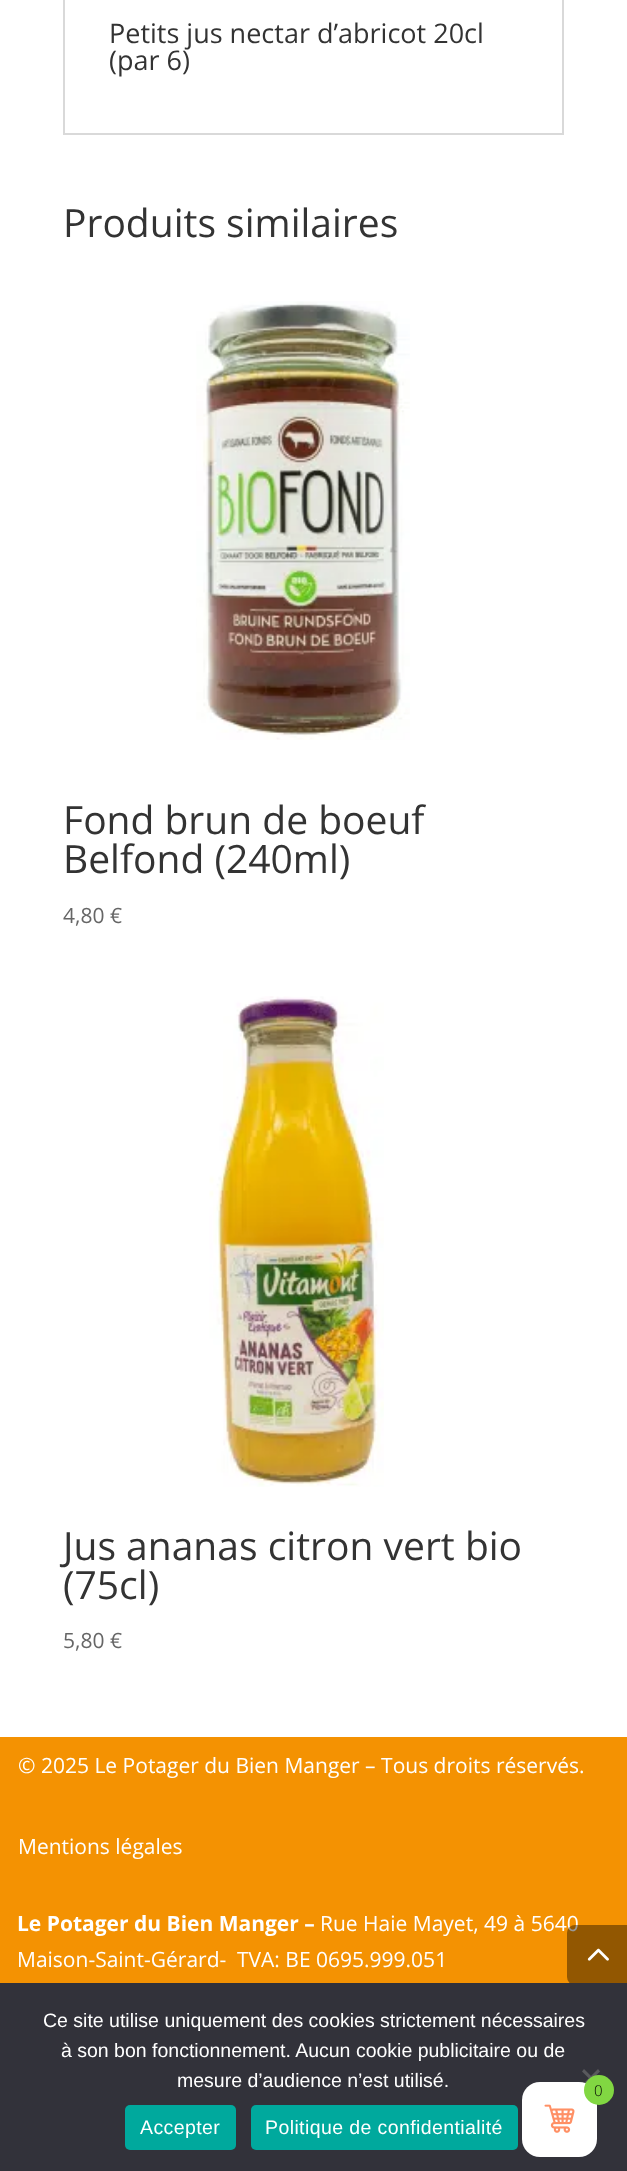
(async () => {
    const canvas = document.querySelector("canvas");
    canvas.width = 627;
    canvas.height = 2171;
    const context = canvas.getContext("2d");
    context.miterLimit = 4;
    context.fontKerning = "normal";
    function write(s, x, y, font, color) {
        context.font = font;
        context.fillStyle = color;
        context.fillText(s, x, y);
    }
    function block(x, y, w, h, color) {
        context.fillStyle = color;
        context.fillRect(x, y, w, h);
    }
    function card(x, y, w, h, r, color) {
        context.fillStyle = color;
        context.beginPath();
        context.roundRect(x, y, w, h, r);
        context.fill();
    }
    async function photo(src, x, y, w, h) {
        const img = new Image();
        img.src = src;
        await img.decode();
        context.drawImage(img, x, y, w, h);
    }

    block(0, 0, 627, 2171, "rgb(244, 146, 2)");
    block(0, 0, 627, 1737, "rgb(255, 255, 255)");
    context.strokeStyle = "rgb(217, 217, 217)";
    context.lineWidth = 2;
    context.strokeRect(64, -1, 499, 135);
    write("Petits jus nectar d’abricot 20cl", 109, 43, "27px Open Sans", "rgb(51, 51, 51)");
    write("(par 6)", 109, 70, "27px Open Sans", "rgb(51, 51, 51)");
    write("Produits similaires", 63, 237, "39px Open Sans", "rgb(51, 51, 51)");
    await photo("media/1.png", 196, 301, 214, 439);
    write("Fond brun de boeuf", 63, 834, "39px Open Sans", "rgb(51, 51, 51)");
    write("Belfond (240ml)", 63, 873, "39px Open Sans", "rgb(51, 51, 51)");
    write("4,80 €", 63, 923, "21px Open Sans", "rgb(102, 102, 102)");
    await photo("media/2.png", 209, 996, 175, 491);
    write("Jus ananas citron vert bio", 63, 1560, "39px Open Sans", "rgb(51, 51, 51)");
    write("(75cl)", 63, 1599, "39px Open Sans", "rgb(51, 51, 51)");
    write("5,80 €", 63, 1648, "21px Open Sans", "rgb(102, 102, 102)");
    write("© 2025 Le Potager du Bien Manger – Tous droits réservés.", 18, 1773, "21px Open Sans", "rgb(255, 255, 255)");
    write("Mentions légales", 18, 1854, "21px Open Sans", "rgb(255, 255, 255)");
    write("Le Potager du Bien Manger –", 17, 1931, "bold 21px Open Sans", "rgb(255, 255, 255)");
    write("Rue Haie Mayet, 49 à 5640", 320, 1931, "21px Open Sans", "rgb(255, 255, 255)");
    write("Maison-Saint-Gérard-", 17, 1967, "21px Open Sans", "rgb(255, 255, 255)");
    write("TVA: BE 0695.999.051", 237, 1967, "21px Open Sans", "rgb(255, 255, 255)");
    context.fillStyle = "rgba(0, 0, 0, 0.4)";
    context.beginPath();
    context.roundRect(567, 1925, 60, 60, [8, 0, 0, 8]);
    context.fill();
    await photo("media/3.png", 587, 1948, 22, 13);
    block(0, 1983, 627, 188, "rgb(50, 50, 58)");
    write("Ce site utilise uniquement des cookies strictement nécessaires", 43, 2027, "19.5px Liberation Sans", "rgb(255, 255, 255)");
    write("à son bon fonctionnement. Aucun cookie publicitaire ou de", 61, 2057, "19.5px Liberation Sans", "rgb(255, 255, 255)");
    write("mesure d’audience n’est utilisé.", 177, 2087, "19.5px Liberation Sans", "rgb(255, 255, 255)");
    context.fillStyle = "rgb(89, 89, 93)";
    context.beginPath();
    context.moveTo(598, 2069);
    context.lineTo(600, 2071.5);
    context.lineTo(584, 2087.5);
    context.lineTo(582, 2085);
    context.closePath();
    context.fill();
    context.beginPath();
    context.moveTo(582, 2071.5);
    context.lineTo(584, 2069);
    context.lineTo(600, 2085);
    context.lineTo(598, 2087.5);
    context.closePath();
    context.fill();
    card(125, 2105, 111, 45, 5, "rgb(0, 169, 157)");
    context.letterSpacing = "0.4px";
    write("Accepter", 140, 2134, "19.5px Liberation Sans", "rgb(255, 255, 255)");
    card(251, 2105, 267, 45, 5, "rgb(0, 169, 157)");
    write("Politique de confidentialité", 265, 2134, "19.5px Liberation Sans", "rgb(255, 255, 255)");
    card(522, 2082, 75, 75, 18, "rgb(255, 255, 255)");
    context.fillStyle = "rgb(129, 215, 66)";
    context.beginPath();
    context.arc(599, 2090, 15, 0, Math.PI * 2);
    context.fill();
    context.letterSpacing = "0px";
    write("0", 594, 2096, "300 15px Open Sans", "rgb(0, 0, 0)");
    await photo("media/4.png", 544, 2104, 31, 29);
})();
